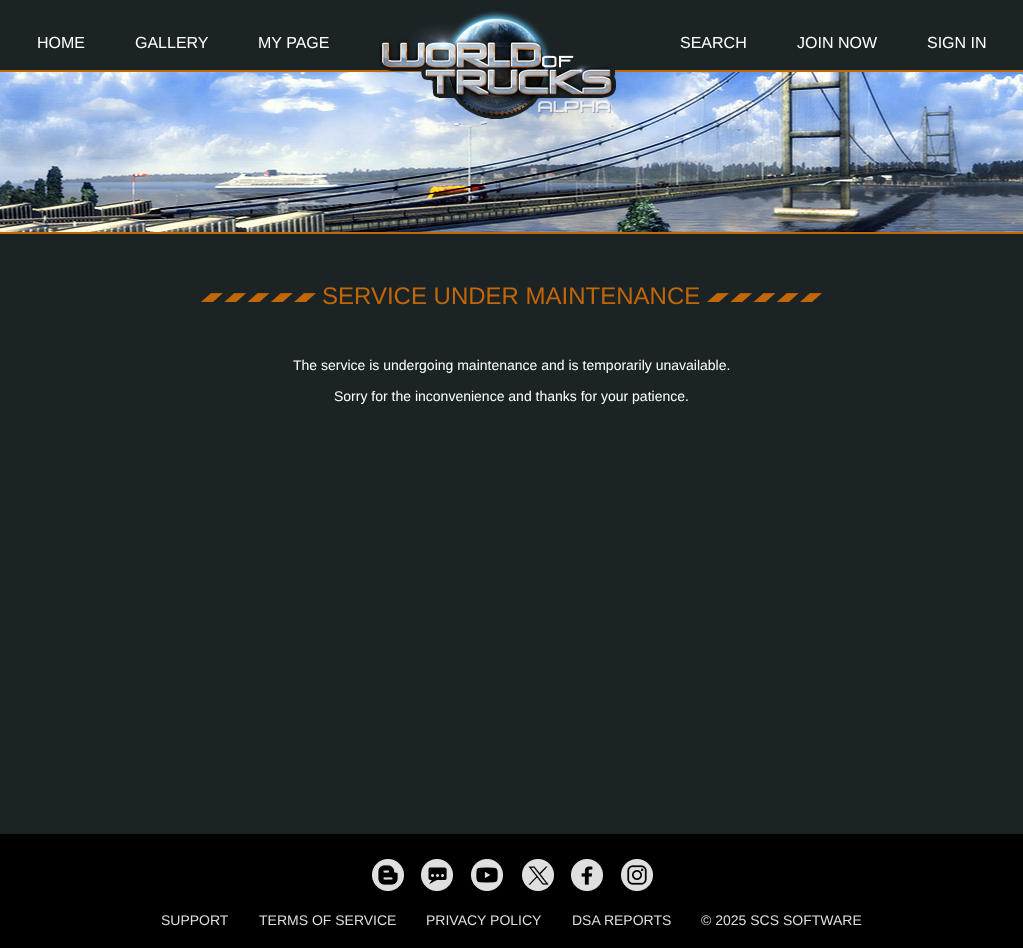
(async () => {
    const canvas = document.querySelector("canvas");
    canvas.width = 1023;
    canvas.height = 948;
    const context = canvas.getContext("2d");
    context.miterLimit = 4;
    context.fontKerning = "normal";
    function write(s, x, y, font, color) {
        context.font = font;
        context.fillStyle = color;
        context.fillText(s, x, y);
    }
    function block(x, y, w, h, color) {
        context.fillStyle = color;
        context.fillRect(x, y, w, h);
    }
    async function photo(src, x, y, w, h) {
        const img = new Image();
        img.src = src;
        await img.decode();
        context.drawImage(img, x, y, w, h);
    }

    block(0, 0, 1023, 948, "rgb(27, 35, 37)");
    block(0, 70, 1023, 2, "rgb(193, 103, 8)");
    write("HOME", 37, 48, "16px Liberation Sans", "rgb(255, 255, 255)");
    write("GALLERY", 135, 48, "16px Liberation Sans", "rgb(255, 255, 255)");
    write("MY PAGE", 258, 48, "16px Liberation Sans", "rgb(255, 255, 255)");
    await photo("media/2.png", 0, 72, 1023, 160);
    await photo("media/1.png", 379, 11, 238, 108);
    write("SEARCH", 680, 48, "16px Liberation Sans", "rgb(255, 255, 255)");
    write("JOIN NOW", 797, 48, "16px Liberation Sans", "rgb(255, 255, 255)");
    write("SIGN IN", 927, 48, "16px Liberation Sans", "rgb(255, 255, 255)");
    block(0, 232, 1023, 2, "rgb(193, 103, 8)");
    await photo("media/3.png", 201, 293, 115, 9);
    write("SERVICE UNDER MAINTENANCE", 322, 304, "24px Liberation Sans", "rgb(193, 103, 8)");
    await photo("media/3.png", 707, 293, 115, 9);
    write("The service is undergoing maintenance and is temporarily unavailable.", 293, 370, "14px Liberation Sans", "rgb(255, 255, 255)");
    write("Sorry for the inconvenience and thanks for your patience.", 334, 401, "14px Liberation Sans", "rgb(255, 255, 255)");
    block(0, 834, 1023, 114, "rgb(0, 0, 0)");
    await photo("media/4.png", 372, 859, 32, 32);
    await photo("media/5.png", 421, 859, 32, 32);
    await photo("media/6.png", 471, 859, 32, 32);
    await photo("media/7.png", 522, 859, 32, 32);
    await photo("media/8.png", 571, 859, 32, 32);
    await photo("media/9.png", 621, 859, 32, 32);
    write("SUPPORT", 161, 925, "14px Liberation Sans", "rgb(223, 223, 223)");
    write("TERMS OF SERVICE", 259, 925, "14px Liberation Sans", "rgb(223, 223, 223)");
    write("PRIVACY POLICY", 426, 925, "14px Liberation Sans", "rgb(223, 223, 223)");
    write("DSA REPORTS", 572, 925, "14px Liberation Sans", "rgb(223, 223, 223)");
    write("© 2025 SCS SOFTWARE", 701, 925, "14px Liberation Sans", "rgb(223, 223, 223)");
})();
